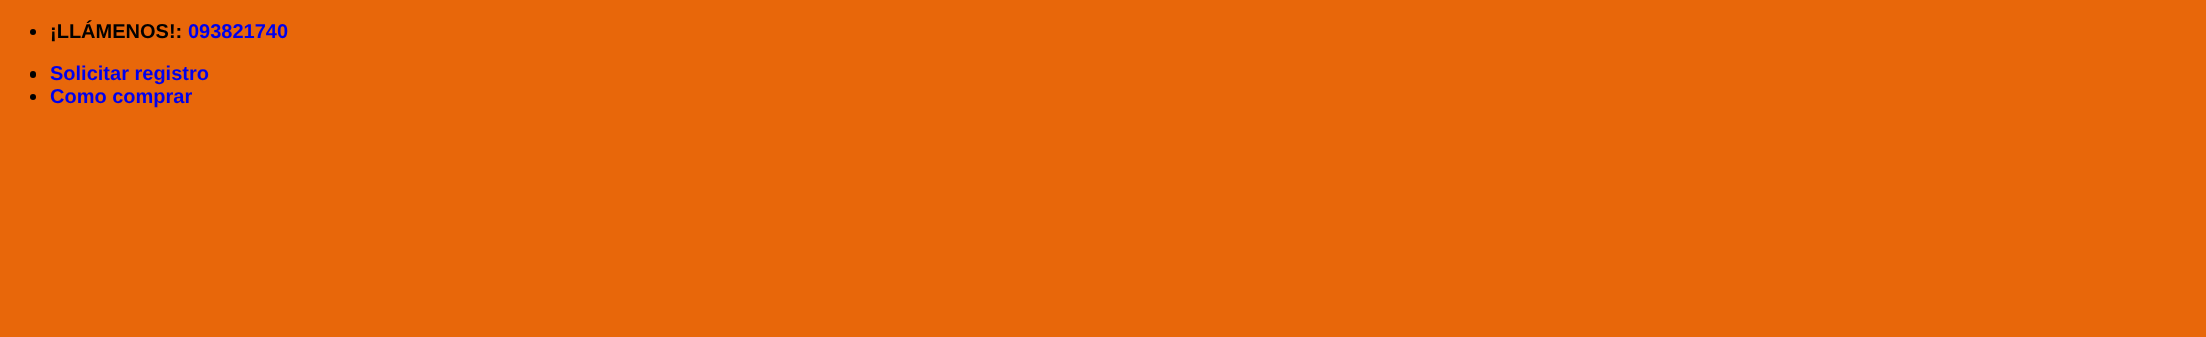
(async () => {
    const canvas = document.querySelector("canvas");
    canvas.width = 2206;
    canvas.height = 337;
    const context = canvas.getContext("2d");
    context.miterLimit = 4;
    context.fontKerning = "normal";
    function write(s, x, y, font, color) {
        context.font = font;
        context.fillStyle = color;
        context.fillText(s, x, y);
    }
    function block(x, y, w, h, color) {
        context.fillStyle = color;
        context.fillRect(x, y, w, h);
    }
    function card(x, y, w, h, r, color) {
        context.fillStyle = color;
        context.beginPath();
        context.roundRect(x, y, w, h, r);
        context.fill();
    }

    block(0, 0, 2206, 337, "rgb(232, 103, 10)");
    context.fillStyle = "rgb(0, 0, 0)";
    context.beginPath();
    context.arc(33, 32, 3, 0, Math.PI * 2);
    context.fill();
    write("¡LLÁMENOS!:", 50, 38, "bold 20px Liberation Sans", "rgb(0, 0, 0)");
    write("093821740", 188, 38, "bold 20px Liberation Sans", "rgb(0, 0, 238)");
    card(30, 71, 6, 7, 3, "rgb(0, 0, 0)");
    write("Solicitar registro", 50, 80, "bold 20px Liberation Sans", "rgb(0, 0, 238)");
    context.fillStyle = "rgb(0, 0, 0)";
    context.beginPath();
    context.arc(33, 97, 3, 0, Math.PI * 2);
    context.fill();
    write("Como comprar", 50, 103, "bold 20px Liberation Sans", "rgb(0, 0, 238)");
})();
